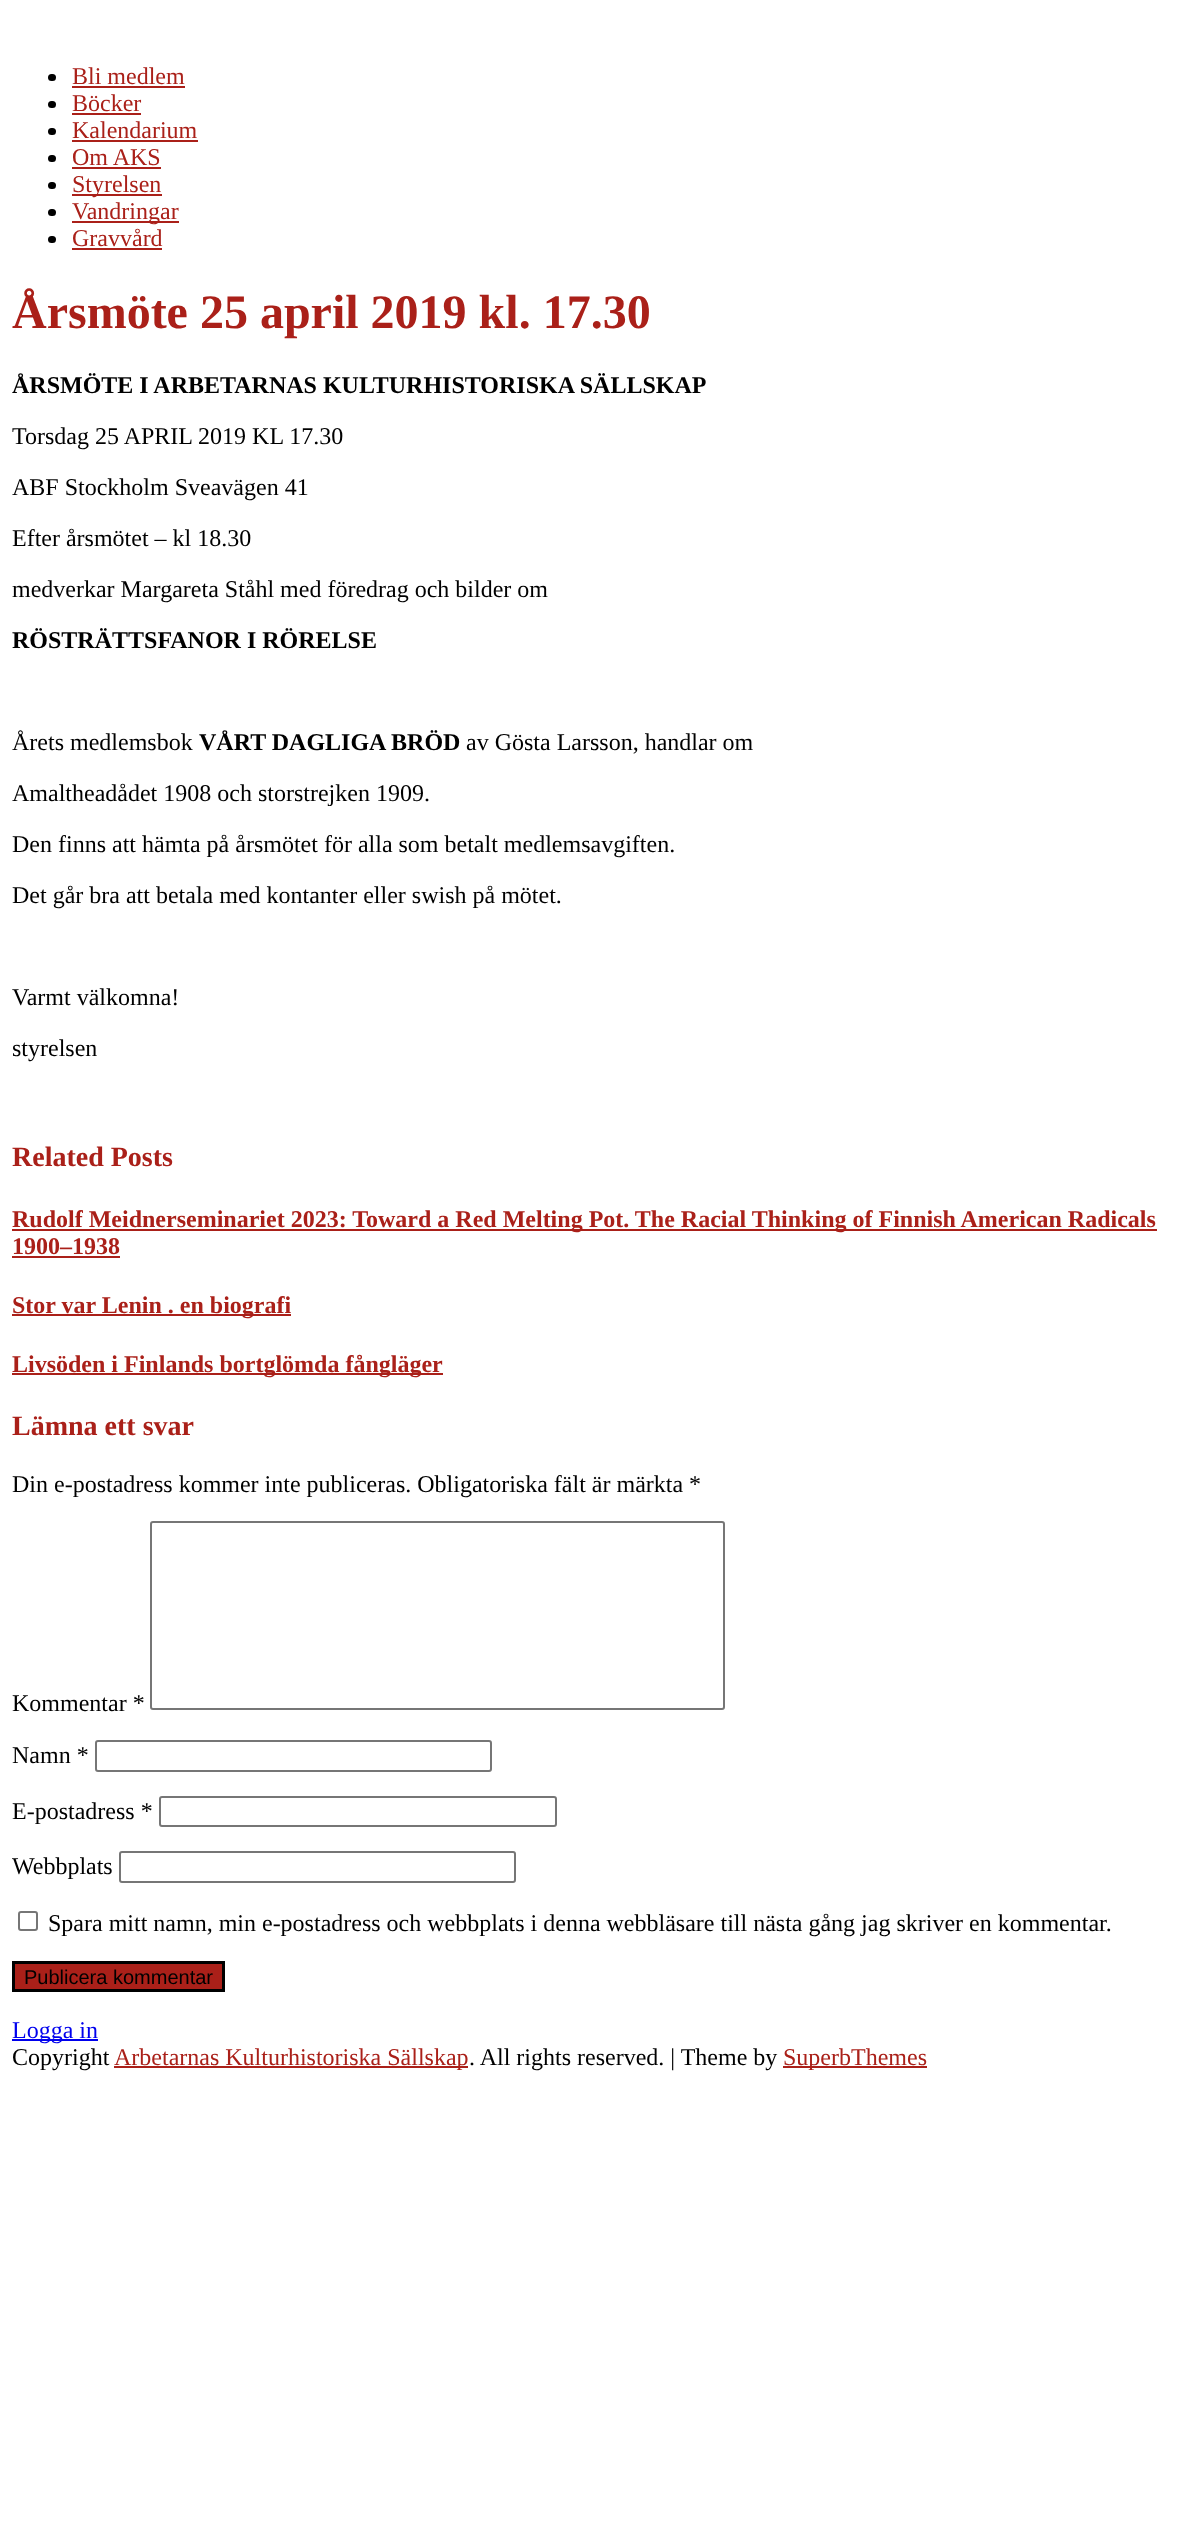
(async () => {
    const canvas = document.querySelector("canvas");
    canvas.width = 1182;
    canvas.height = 2527;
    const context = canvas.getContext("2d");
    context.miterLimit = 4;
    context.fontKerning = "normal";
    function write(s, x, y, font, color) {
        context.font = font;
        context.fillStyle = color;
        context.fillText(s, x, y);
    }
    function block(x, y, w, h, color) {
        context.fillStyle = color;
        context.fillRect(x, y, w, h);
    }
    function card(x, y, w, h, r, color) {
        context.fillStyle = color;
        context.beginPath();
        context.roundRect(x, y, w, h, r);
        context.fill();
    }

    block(0, 0, 1182, 2527, "rgb(255, 255, 255)");
    card(48, 74, 8, 7, 3.5, "rgb(0, 0, 0)");
    write("Bli medlem", 72, 84, "24px Liberation Serif", "rgb(170, 32, 25)");
    block(72, 86, 113, 2, "rgb(170, 32, 25)");
    card(48, 101, 8, 7, 3.5, "rgb(0, 0, 0)");
    write("Böcker", 72, 111, "24px Liberation Serif", "rgb(170, 32, 25)");
    block(72, 113, 69, 2, "rgb(170, 32, 25)");
    card(48, 128, 8, 7, 3.5, "rgb(0, 0, 0)");
    write("Kalendarium", 72, 138, "24px Liberation Serif", "rgb(170, 32, 25)");
    block(72, 140, 126, 2, "rgb(170, 32, 25)");
    card(48, 155, 8, 7, 3.5, "rgb(0, 0, 0)");
    write("Om AKS", 72, 165, "24px Liberation Serif", "rgb(170, 32, 25)");
    block(72, 167, 89, 2, "rgb(170, 32, 25)");
    card(48, 182, 8, 7, 3.5, "rgb(0, 0, 0)");
    block(72, 194, 90, 2, "rgb(170, 32, 25)");
    write("Styrelsen", 72, 192, "24px Liberation Serif", "rgb(170, 32, 25)");
    card(48, 209, 8, 7, 3.5, "rgb(0, 0, 0)");
    block(72, 221, 107, 2, "rgb(170, 32, 25)");
    write("Vandringar", 72, 219, "24px Liberation Serif", "rgb(170, 32, 25)");
    card(48, 236, 8, 7, 3.5, "rgb(0, 0, 0)");
    write("Gravvård", 72, 246, "24px Liberation Serif", "rgb(170, 32, 25)");
    block(72, 248, 90, 2, "rgb(170, 32, 25)");
    write("Årsmöte 25 april 2019 kl. 17.30", 12, 328, "bold 48px Liberation Serif", "rgb(170, 32, 25)");
    write("ÅRSMÖTE I ARBETARNAS KULTURHISTORISKA SÄLLSKAP", 12, 393, "bold 24px Liberation Serif", "rgb(0, 0, 0)");
    write("Torsdag 25 APRIL 2019 KL 17.30", 12, 444, "24px Liberation Serif", "rgb(0, 0, 0)");
    write("ABF Stockholm Sveavägen 41", 12, 495, "24px Liberation Serif", "rgb(0, 0, 0)");
    write("Efter årsmötet – kl 18.30", 12, 546, "24px Liberation Serif", "rgb(0, 0, 0)");
    write("medverkar Margareta Ståhl med föredrag och bilder om", 12, 597, "24px Liberation Serif", "rgb(0, 0, 0)");
    write("RÖSTRÄTTSFANOR I RÖRELSE", 12, 648, "bold 24px Liberation Serif", "rgb(0, 0, 0)");
    write("Årets medlemsbok", 12, 750, "24px Liberation Serif", "rgb(0, 0, 0)");
    write("VÅRT DAGLIGA BRÖD", 199, 750, "bold 24px Liberation Serif", "rgb(0, 0, 0)");
    write("av Gösta Larsson, handlar om", 466, 750, "24px Liberation Serif", "rgb(0, 0, 0)");
    write("Amaltheadådet 1908 och storstrejken 1909.", 12, 801, "24px Liberation Serif", "rgb(0, 0, 0)");
    write("Den finns att hämta på årsmötet för alla som betalt medlemsavgiften.", 12, 852, "24px Liberation Serif", "rgb(0, 0, 0)");
    write("Det går bra att betala med kontanter eller swish på mötet.", 12, 903, "24px Liberation Serif", "rgb(0, 0, 0)");
    write("Varmt välkomna!", 12, 1005, "24px Liberation Serif", "rgb(0, 0, 0)");
    write("styrelsen", 12, 1056, "24px Liberation Serif", "rgb(0, 0, 0)");
    write("Related Posts", 12, 1166, "bold 28px Liberation Serif", "rgb(170, 32, 25)");
    block(12, 1229, 1145, 2, "rgb(170, 32, 25)");
    write("Rudolf Meidnerseminariet 2023: Toward a Red Melting Pot. The Racial Thinking of Finnish American Radicals", 12, 1227, "bold 24px Liberation Serif", "rgb(170, 32, 25)");
    write("1900–1938", 12, 1254, "bold 24px Liberation Serif", "rgb(170, 32, 25)");
    block(12, 1256, 108, 2, "rgb(170, 32, 25)");
    block(12, 1314, 279, 2, "rgb(170, 32, 25)");
    write("Stor var Lenin . en biografi", 12, 1313, "bold 24px Liberation Serif", "rgb(170, 32, 25)");
    block(12, 1373, 431, 2, "rgb(170, 32, 25)");
    write("Livsöden i Finlands bortglömda fångläger", 12, 1372, "bold 24px Liberation Serif", "rgb(170, 32, 25)");
    write("Lämna ett svar", 12, 1435, "bold 28px Liberation Serif", "rgb(170, 32, 25)");
    write("Din e-postadress kommer inte publiceras. Obligatoriska fält är märkta *", 12, 1492, "24px Liberation Serif", "rgb(0, 0, 0)");
    write("Kommentar *", 12, 1711, "24px Liberation Serif", "rgb(0, 0, 0)");
    context.beginPath();
    context.roundRect(151, 1522, 573, 187, 2);
    context.strokeStyle = "rgb(118, 118, 118)";
    context.lineWidth = 2;
    context.stroke();
    write("Namn *", 12, 1763, "24px Liberation Serif", "rgb(0, 0, 0)");
    context.beginPath();
    context.roundRect(96, 1741, 395, 30, 2);
    context.stroke();
    write("E-postadress *", 12, 1819, "24px Liberation Serif", "rgb(0, 0, 0)");
    context.beginPath();
    context.roundRect(160, 1797, 396, 29, 2);
    context.stroke();
    write("Webbplats", 12, 1874, "24px Liberation Serif", "rgb(0, 0, 0)");
    context.beginPath();
    context.roundRect(120, 1852, 395, 30, 2);
    context.stroke();
    context.beginPath();
    context.roundRect(19, 1912, 18, 18, 2);
    context.stroke();
    write("Spara mitt namn, min e-postadress och webbplats i denna webbläsare till nästa gång jag skriver en kommentar.", 48, 1931, "24px Liberation Serif", "rgb(0, 0, 0)");
    context.fillStyle = "rgb(170, 32, 25)";
    context.beginPath();
    context.rect(13.5, 1962.5, 210, 28);
    context.fill();
    context.strokeStyle = "rgb(0, 0, 0)";
    context.lineWidth = 3;
    context.stroke();
    write("Publicera kommentar", 24, 1984, "20px Liberation Sans", "rgb(0, 0, 0)");
    block(12, 2039, 86, 2, "rgb(0, 0, 238)");
    write("Logga in", 12, 2038, "24px Liberation Serif", "rgb(0, 0, 238)");
    write("Copyright", 12, 2065, "24px Liberation Serif", "rgb(0, 0, 0)");
    block(114, 2066, 354, 2, "rgb(170, 32, 25)");
    write("Arbetarnas Kulturhistoriska Sällskap", 114, 2065, "24px Liberation Serif", "rgb(170, 32, 25)");
    write(". All rights reserved. | Theme by", 469, 2065, "24px Liberation Serif", "rgb(0, 0, 0)");
    block(783, 2066, 144, 2, "rgb(170, 32, 25)");
    write("SuperbThemes", 783, 2065, "24px Liberation Serif", "rgb(170, 32, 25)");
})();
